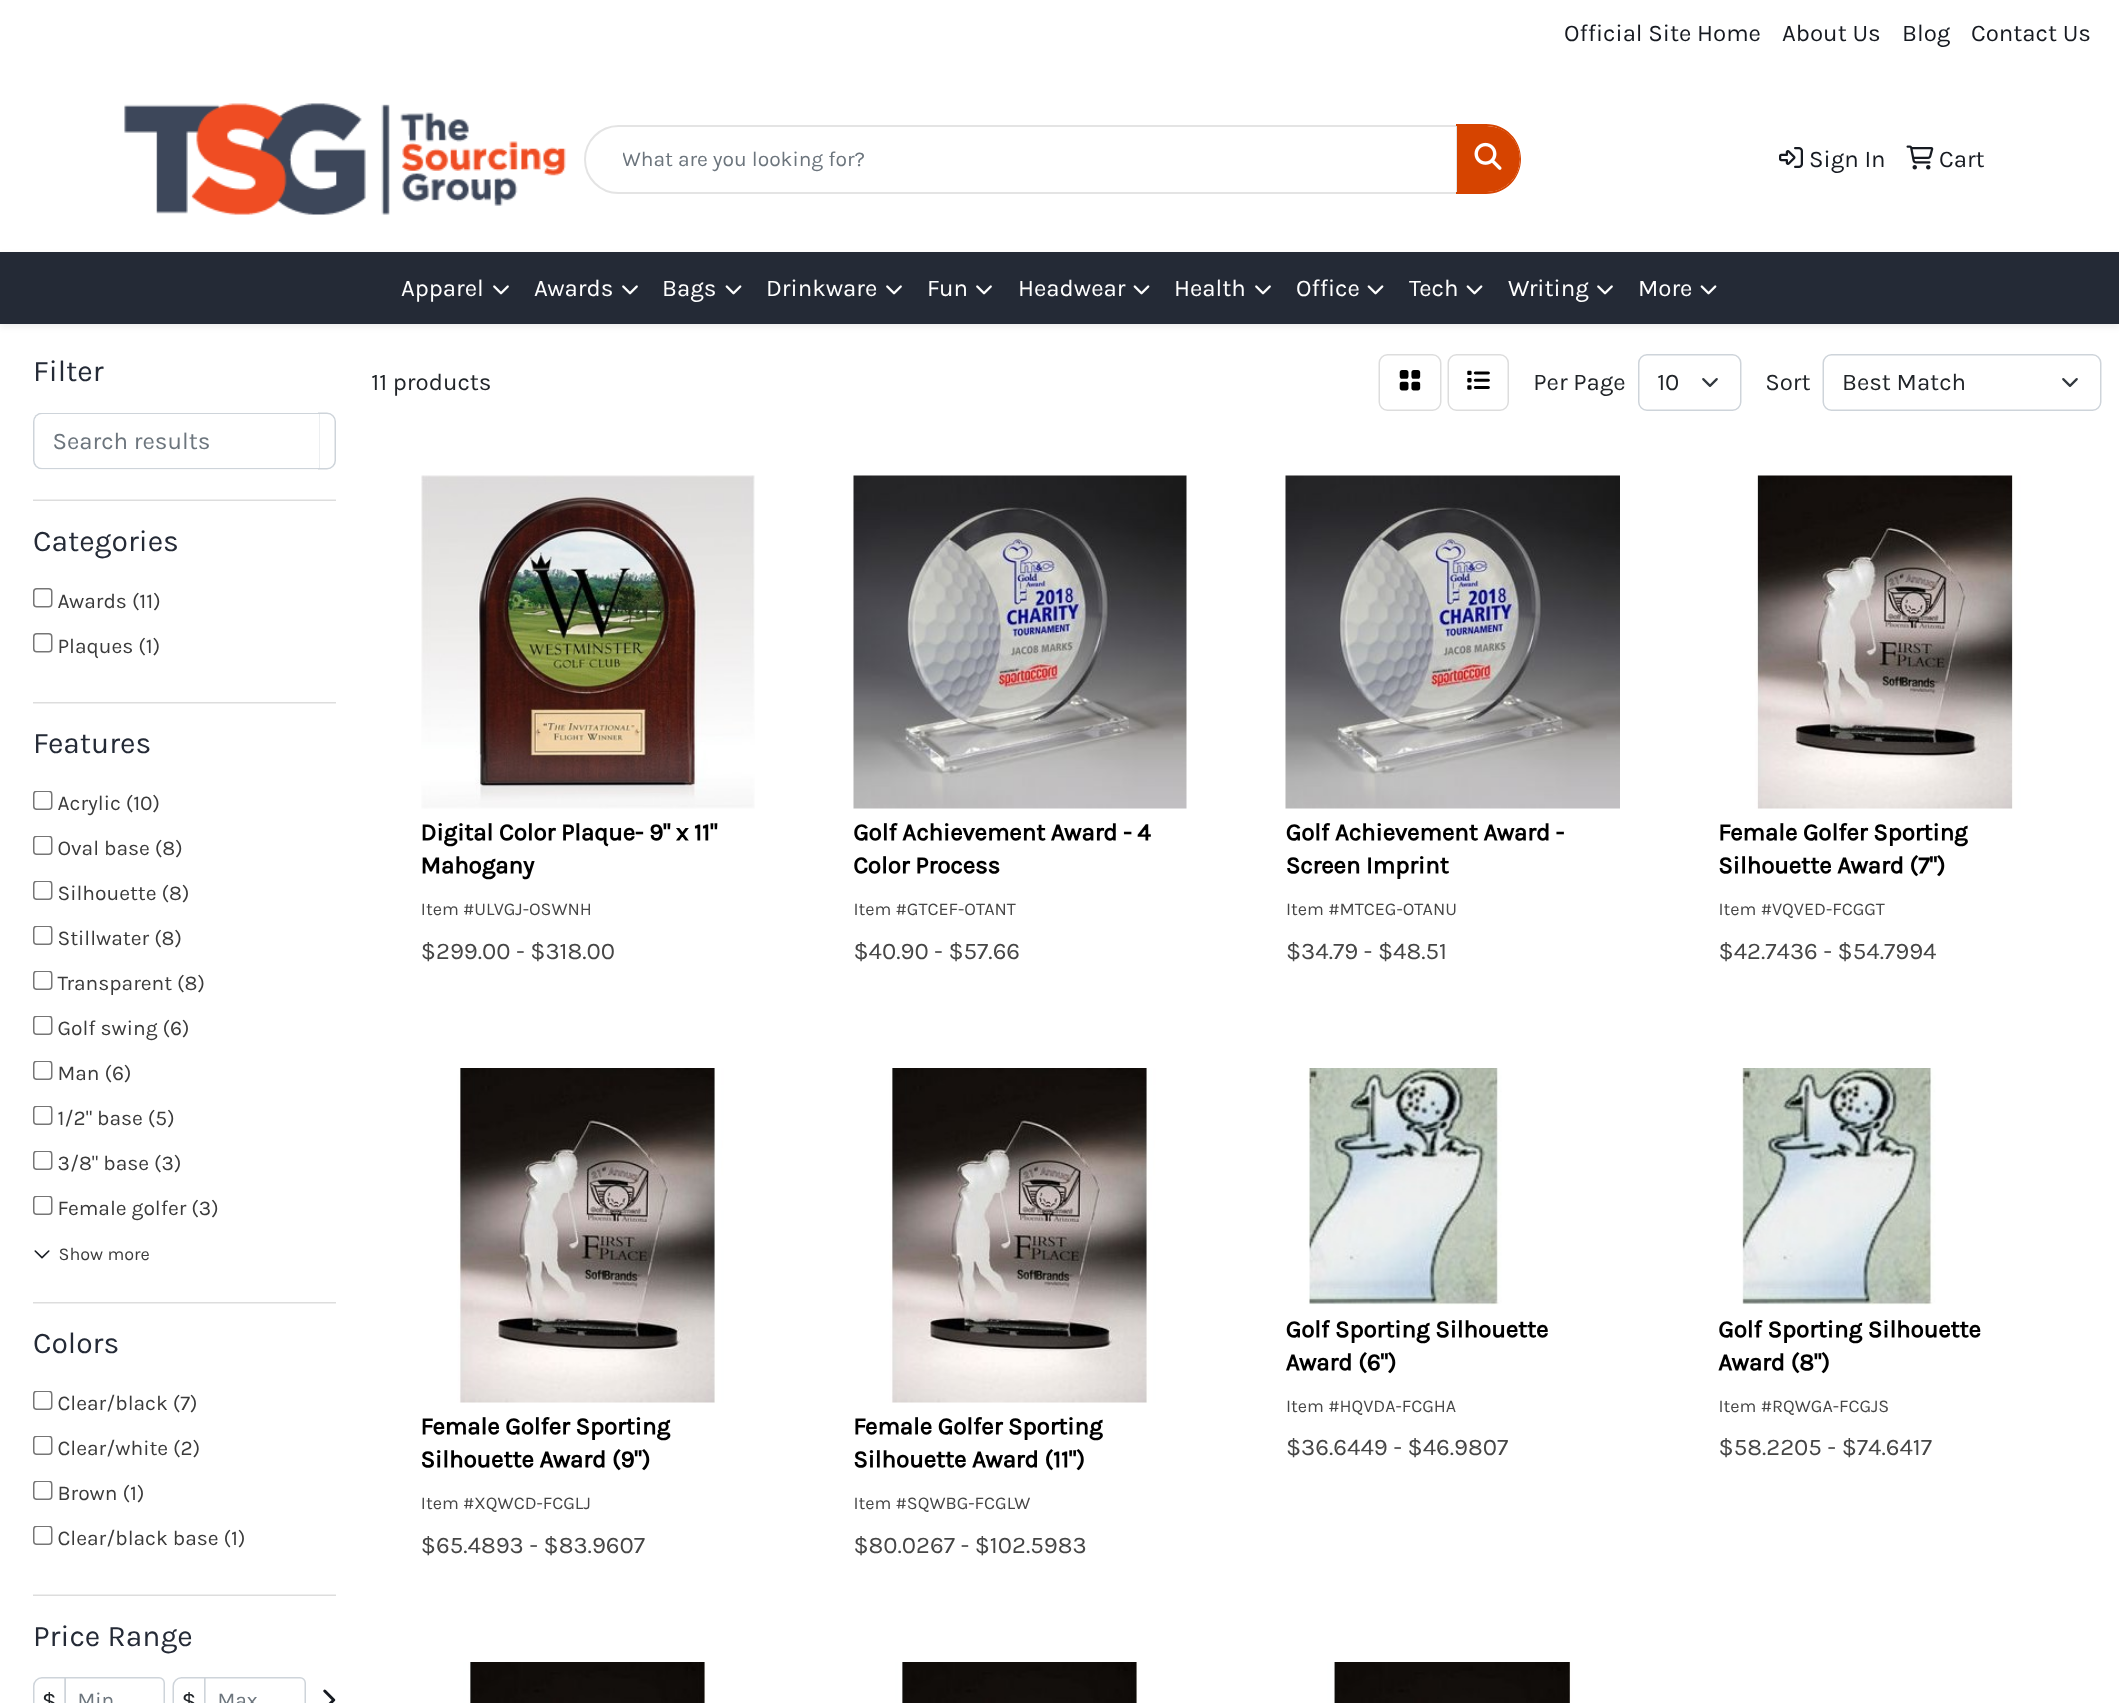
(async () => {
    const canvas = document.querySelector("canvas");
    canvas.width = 2119;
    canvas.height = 1703;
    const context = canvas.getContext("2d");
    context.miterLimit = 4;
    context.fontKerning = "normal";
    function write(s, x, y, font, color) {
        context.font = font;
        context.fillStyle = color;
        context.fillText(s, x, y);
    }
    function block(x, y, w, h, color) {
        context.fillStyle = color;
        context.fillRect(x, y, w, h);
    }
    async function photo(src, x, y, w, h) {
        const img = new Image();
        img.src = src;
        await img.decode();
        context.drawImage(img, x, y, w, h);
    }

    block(0, 0, 2119, 1703, "rgb(255, 255, 255)");
    write("Official Site Home", 1564, 41, "24px Karla", "rgb(22, 26, 33)");
    write("About Us", 1782, 41, "24px Karla", "rgb(22, 26, 33)");
    write("Blog", 1902, 41, "24px Karla", "rgb(22, 26, 33)");
    write("Contact Us", 1971, 41, "24px Karla", "rgb(22, 26, 33)");
    await photo("media/1.png", 124, 103, 442, 112);
    context.beginPath();
    context.roundRect(585, 126, 872, 67, [33.5, 0, 0, 33.5]);
    context.strokeStyle = "rgb(228, 228, 228)";
    context.lineWidth = 2;
    context.stroke();
    context.save();
    context.beginPath();
    context.rect(623, 147, 816, 26);
    context.clip();
    write("What are you looking for?", 622, 166, "21px Karla", "rgb(108, 117, 125)");
    context.restore();
    context.fillStyle = "rgb(214, 68, 0)";
    context.beginPath();
    context.roundRect(1457, 126, 63, 66, [0, 33, 33, 0]);
    context.fill();
    context.beginPath();
    context.moveTo(1456, 124);
    context.lineTo(1486, 124);
    context.bezierCurveTo(1506, 124, 1521, 140, 1521, 159);
    context.bezierCurveTo(1521, 178, 1506, 194, 1486, 194);
    context.lineTo(1456, 194);
    context.closePath();
    context.moveTo(1456, 126);
    context.lineTo(1486, 126);
    context.bezierCurveTo(1505, 126, 1520, 141, 1520, 159);
    context.bezierCurveTo(1520, 177, 1505, 192, 1486, 192);
    context.lineTo(1456, 192);
    context.closePath();
    context.fill("evenodd");
    await photo("media/2.png", 1474, 142, 28, 28);
    await photo("media/3.png", 1779, 147, 24, 21);
    write("Sign In", 1809, 167, "24px Karla", "rgb(22, 26, 33)");
    await photo("media/4.png", 1906, 145, 28, 25);
    write("Cart", 1939, 167, "24px Karla", "rgb(22, 26, 33)");
    context.fillStyle = "rgba(0, 0, 0, 0.07)";
    context.filter = "blur(3px)";
    context.beginPath();
    context.rect(0, 255, 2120, 72);
    context.fill();
    context.filter = "none";
    block(0, 252, 2119, 72, "rgb(36, 42, 54)");
    write("Apparel", 401, 296, "24px Karla", "rgb(255, 255, 255)");
    await photo("media/5.png", 493, 285, 16, 10);
    write("Awards", 534, 296, "24px Karla", "rgb(255, 255, 255)");
    await photo("media/5.png", 622, 285, 16, 10);
    write("Bags", 662, 296, "24px Karla", "rgb(255, 255, 255)");
    await photo("media/6.png", 725, 285, 17, 10);
    write("Drinkware", 766, 296, "24px Karla", "rgb(255, 255, 255)");
    await photo("media/5.png", 886, 285, 16, 10);
    write("Fun", 927, 296, "24px Karla", "rgb(255, 255, 255)");
    await photo("media/5.png", 976, 285, 16, 10);
    write("Headwear", 1018, 296, "24px Karla", "rgb(255, 255, 255)");
    await photo("media/6.png", 1133, 285, 17, 10);
    write("Health", 1174, 296, "24px Karla", "rgb(255, 255, 255)");
    await photo("media/5.png", 1255, 285, 16, 10);
    write("Office", 1296, 296, "24px Karla", "rgb(255, 255, 255)");
    await photo("media/6.png", 1367, 285, 17, 10);
    write("Tech", 1409, 296, "24px Karla", "rgb(255, 255, 255)");
    await photo("media/6.png", 1466, 285, 17, 10);
    write("Writing", 1508, 296, "24px Karla", "rgb(255, 255, 255)");
    await photo("media/5.png", 1597, 285, 16, 10);
    write("More", 1638, 296, "24px Karla", "rgb(255, 255, 255)");
    await photo("media/6.png", 1700, 285, 17, 10);
    await photo("media/7.png", 33, 354, 2069, 1349);
})();
